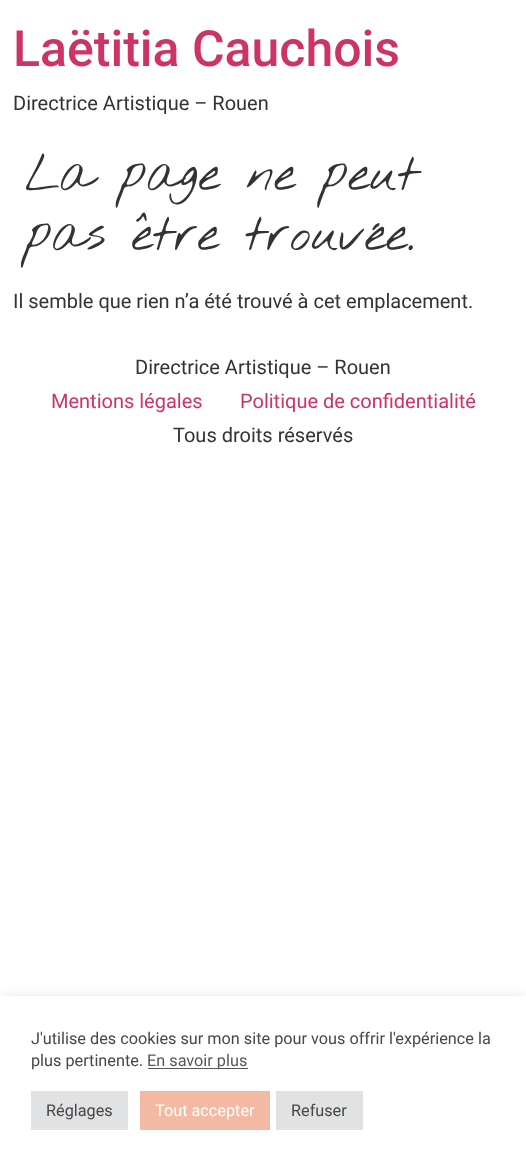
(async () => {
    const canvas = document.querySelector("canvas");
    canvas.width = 526;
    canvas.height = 1167;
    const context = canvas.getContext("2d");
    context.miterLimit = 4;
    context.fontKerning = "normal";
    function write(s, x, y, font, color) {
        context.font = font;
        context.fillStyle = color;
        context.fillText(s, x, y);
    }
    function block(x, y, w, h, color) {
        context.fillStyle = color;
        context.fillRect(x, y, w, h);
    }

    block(0, 0, 526, 1167, "rgb(255, 255, 255)");
    write("Laëtitia Cauchois", 13, 66, "500 50px Roboto", "rgb(204, 51, 102)");
    write("Directrice Artistique – Rouen", 13, 110, "20px Roboto", "rgb(51, 51, 51)");
    write("La page ne peut", 25, 190, "100 50px Nothing You Could Do", "rgb(51, 51, 51)");
    write("pas être trouvée.", 25, 250, "100 50px Nothing You Could Do", "rgb(51, 51, 51)");
    write("Il semble que rien n’a été trouvé à cet emplacement.", 13, 308, "20px Roboto", "rgb(51, 51, 51)");
    write("Directrice Artistique – Rouen", 135, 374, "20px Roboto", "rgb(51, 51, 51)");
    write("Mentions légales", 51, 408, "20px Roboto", "rgb(204, 51, 102)");
    write("Politique de confidentialité", 240, 408, "20px Roboto", "rgb(204, 51, 102)");
    write("Tous droits réservés", 173, 442, "20px Roboto", "rgb(51, 51, 51)");
    context.fillStyle = "rgba(180, 179, 179, 0.3)";
    context.filter = "blur(6px)";
    context.beginPath();
    context.rect(0, 995, 526, 171);
    context.fill();
    context.filter = "none";
    block(0, 996, 526, 171, "rgb(255, 255, 255)");
    write("J'utilise des cookies sur mon site pour vous offrir l'expérience la", 31, 1044, "16.25px Roboto", "rgb(71, 71, 71)");
    write("plus pertinente.", 31, 1066, "16.25px Roboto", "rgb(71, 71, 71)");
    block(148, 1068, 100, 1, "rgb(87, 87, 87)");
    write("En savoir plus", 147, 1066, "16.25px Roboto", "rgb(87, 87, 87)");
    block(31, 1091, 97, 39, "rgb(225, 226, 227)");
    write("Réglages", 46, 1116, "16.25px Roboto", "rgb(71, 71, 71)");
    block(140, 1091, 130, 39, "rgb(243, 186, 163)");
    write("Tout accepter", 155, 1116, "16.25px Roboto", "rgb(255, 255, 255)");
    block(276, 1091, 87, 39, "rgb(225, 226, 227)");
    write("Refuser", 291, 1116, "16.25px Roboto", "rgb(71, 71, 71)");
})();
